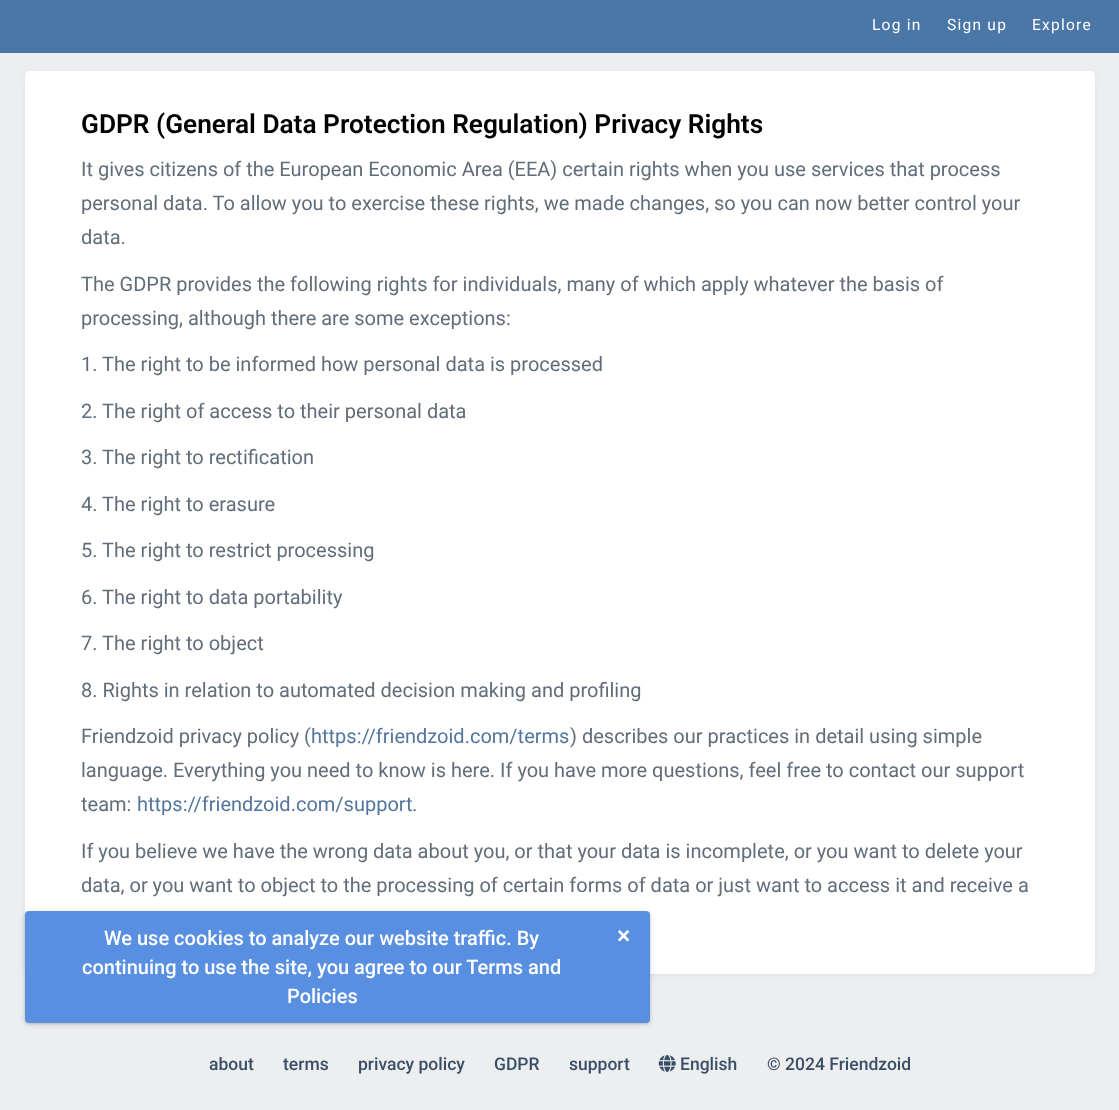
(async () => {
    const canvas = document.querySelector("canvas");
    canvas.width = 1119;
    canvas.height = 1110;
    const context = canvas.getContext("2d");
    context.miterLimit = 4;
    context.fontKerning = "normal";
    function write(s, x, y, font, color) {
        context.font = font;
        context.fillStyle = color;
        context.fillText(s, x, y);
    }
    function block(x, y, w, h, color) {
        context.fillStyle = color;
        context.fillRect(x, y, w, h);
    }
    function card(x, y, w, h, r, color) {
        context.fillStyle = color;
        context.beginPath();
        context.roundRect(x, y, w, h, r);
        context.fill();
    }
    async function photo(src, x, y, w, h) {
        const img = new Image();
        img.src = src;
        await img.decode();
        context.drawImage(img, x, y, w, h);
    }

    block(0, 0, 1119, 1110, "rgb(237, 238, 240)");
    block(0, 0, 1119, 53, "rgb(74, 118, 168)");
    block(0, 51, 1119, 1, "rgb(72, 114, 163)");
    context.letterSpacing = "1.25px";
    write("Log in", 872, 30, "15.5px Roboto", "rgb(255, 255, 255)");
    write("Sign up", 947, 30, "15.5px Roboto", "rgb(255, 255, 255)");
    write("Explore", 1032, 30, "15.5px Roboto", "rgb(255, 255, 255)");
    context.fillStyle = "rgb(220, 225, 230)";
    context.filter = "blur(3px)";
    context.beginPath();
    context.roundRect(25, 73, 1070, 902, 5);
    context.fill();
    context.filter = "none";
    card(25, 71, 1070, 903, 5, "rgb(255, 255, 255)");
    context.letterSpacing = "0px";
    write("GDPR (General Data Protection Regulation) Privacy Rights", 81, 133, "600 26.25px Roboto", "rgb(0, 0, 0)");
    write("It gives citizens of the European Economic Area (EEA) certain rights when you use services that process", 81, 176, "20px Roboto", "rgb(98, 109, 122)");
    write("personal data. To allow you to exercise these rights, we made changes, so you can now better control your", 81, 210, "20px Roboto", "rgb(98, 109, 122)");
    write("data.", 81, 244, "20px Roboto", "rgb(98, 109, 122)");
    write("The GDPR provides the following rights for individuals, many of which apply whatever the basis of", 81, 291, "20px Roboto", "rgb(98, 109, 122)");
    write("processing, although there are some exceptions:", 81, 325, "20px Roboto", "rgb(98, 109, 122)");
    write("1. The right to be informed how personal data is processed", 81, 371, "20px Roboto", "rgb(98, 109, 122)");
    write("2. The right of access to their personal data", 81, 418, "20px Roboto", "rgb(98, 109, 122)");
    write("3. The right to rectification", 81, 464, "20px Roboto", "rgb(98, 109, 122)");
    write("4. The right to erasure", 81, 511, "20px Roboto", "rgb(98, 109, 122)");
    write("5. The right to restrict processing", 81, 557, "20px Roboto", "rgb(98, 109, 122)");
    write("6. The right to data portability", 81, 604, "20px Roboto", "rgb(98, 109, 122)");
    write("7. The right to object", 81, 650, "20px Roboto", "rgb(98, 109, 122)");
    write("8. Rights in relation to automated decision making and profiling", 81, 697, "20px Roboto", "rgb(98, 109, 122)");
    write("Friendzoid privacy policy (", 81, 743, "20px Roboto", "rgb(98, 109, 122)");
    write("https://friendzoid.com/terms", 311, 743, "20px Roboto", "rgb(84, 117, 158)");
    write(") describes our practices in detail using simple", 570, 743, "20px Roboto", "rgb(98, 109, 122)");
    write("language. Everything you need to know is here. If you have more questions, feel free to contact our support", 81, 777, "20px Roboto", "rgb(98, 109, 122)");
    write("team:", 81, 811, "20px Roboto", "rgb(98, 109, 122)");
    write("https://friendzoid.com/support", 137, 811, "20px Roboto", "rgb(84, 117, 158)");
    write(".", 412, 811, "20px Roboto", "rgb(98, 109, 122)");
    write("If you believe we have the wrong data about you, or that your data is incomplete, or you want to delete your", 81, 858, "20px Roboto", "rgb(98, 109, 122)");
    write("data, or you want to object to the processing of certain forms of data or just want to access it and receive a", 81, 892, "20px Roboto", "rgb(98, 109, 122)");
    context.fillStyle = "rgba(0, 0, 0, 0.12)";
    context.filter = "blur(0.5px)";
    context.beginPath();
    context.roundRect(28, 916, 620, 107, 1);
    context.fill();
    context.filter = "none";
    context.filter = "blur(3px)";
    context.beginPath();
    context.roundRect(25, 913, 625, 111, 4);
    context.fill();
    context.filter = "none";
    context.fillStyle = "rgba(0, 0, 0, 0.14)";
    context.filter = "blur(1px)";
    context.beginPath();
    context.roundRect(25, 913, 625, 111, 4);
    context.fill();
    context.filter = "none";
    card(25, 911, 625, 112, 4, "rgb(88, 143, 225)");
    write("We use cookies to analyze our website traffic. By", 104, 945, "500 20px Roboto", "rgb(255, 255, 255)");
    write("continuing to use the site, you agree to our Terms and", 82, 974, "500 20px Roboto", "rgb(255, 255, 255)");
    write("Policies", 287, 1003, "500 20px Roboto", "rgb(255, 255, 255)");
    write("×", 617, 944, "600 25px Roboto", "rgb(255, 255, 255)");
    write("about", 209, 1070, "500 17.5px Roboto", "rgb(57, 78, 102)");
    write("terms", 283, 1070, "500 17.5px Roboto", "rgb(57, 78, 102)");
    write("privacy policy", 358, 1070, "500 17.5px Roboto", "rgb(57, 78, 102)");
    write("GDPR", 494, 1070, "500 17.5px Roboto", "rgb(57, 78, 102)");
    write("support", 569, 1070, "500 17.5px Roboto", "rgb(57, 78, 102)");
    await photo("media/1.png", 658, 1055, 18, 17);
    write("English", 680, 1070, "500 17.5px Roboto", "rgb(57, 78, 102)");
    write("© 2024 Friendzoid", 767, 1070, "500 17.5px Roboto", "rgb(57, 78, 102)");
})();
